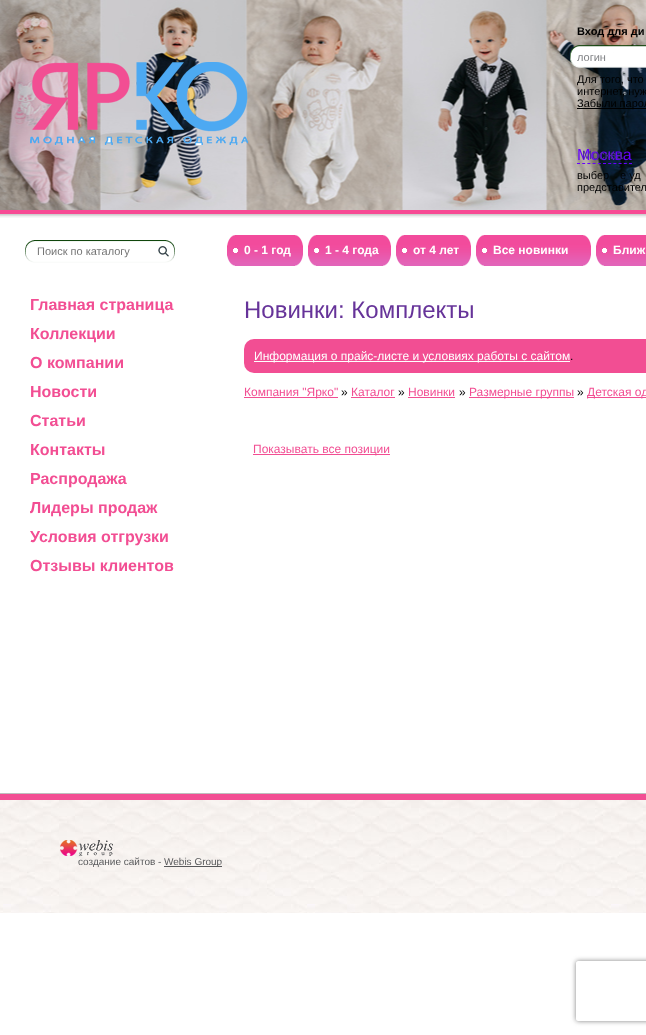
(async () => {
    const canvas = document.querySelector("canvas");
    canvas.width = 646;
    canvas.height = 1035;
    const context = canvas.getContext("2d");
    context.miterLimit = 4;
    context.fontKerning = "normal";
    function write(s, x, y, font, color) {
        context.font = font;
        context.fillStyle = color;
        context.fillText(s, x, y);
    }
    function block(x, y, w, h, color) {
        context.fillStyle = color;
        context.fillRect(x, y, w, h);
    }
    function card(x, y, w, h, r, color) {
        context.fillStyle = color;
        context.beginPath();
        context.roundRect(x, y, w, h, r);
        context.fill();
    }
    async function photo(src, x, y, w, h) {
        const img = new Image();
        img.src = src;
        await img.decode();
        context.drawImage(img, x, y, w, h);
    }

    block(0, 0, 646, 1035, "rgb(255, 255, 255)");
    await photo("media/1.png", 0, 0, 646, 210);
    await photo("media/2.png", 0, 210, 646, 8);
    await photo("media/3.png", 30, 62, 218, 83);
    write("Вход для ди", 577, 35, "bold 11px Liberation Sans", "rgb(0, 0, 0)");
    await photo("media/4.png", 570, 45, 76, 23);
    write("логин", 577, 61, "11px Liberation Sans", "rgb(128, 130, 133)");
    write("Для того, что", 577, 83, "11px Liberation Sans", "rgb(0, 0, 0)");
    write("интернет, нуж", 577, 95, "11px Liberation Sans", "rgb(0, 0, 0)");
    block(577, 108, 69, 1, "rgb(0, 0, 0)");
    write("Забыли парол", 577, 107, "11px Liberation Sans", "rgb(0, 0, 0)");
    write("Москва", 577, 160, "16px Liberation Sans", "rgb(102, 0, 255)");
    context.beginPath();
    context.moveTo(577, 163.5);
    context.lineTo(632, 163.5);
    context.strokeStyle = "rgb(102, 0, 255)";
    context.setLineDash([3, 2.2]);
    context.stroke();
    write("Москва", 582, 159, "12px Liberation Sans", "rgb(79, 46, 147)");
    write("выбер", 577, 179, "11px Liberation Sans", "rgb(0, 0, 0)");
    write("е уд", 620, 179, "11px Liberation Sans", "rgb(0, 0, 0)");
    write("представител", 577, 191, "11px Liberation Sans", "rgb(0, 0, 0)");
    await photo("media/5.png", 25, 240, 150, 23);
    write("Поиск по каталогу", 37, 255, "11px Liberation Sans", "rgb(117, 117, 117)");
    await photo("media/6.png", 227, 235, 68, 31);
    await photo("media/7.png", 295, 235, 8, 31);
    write("0 - 1 год", 244, 254, "bold 12px Liberation Sans", "rgb(255, 255, 255)");
    await photo("media/8.png", 308, 235, 11, 31);
    await photo("media/9.png", 319, 235, 72, 31);
    write("1 - 4 года", 325, 254, "bold 12px Liberation Sans", "rgb(255, 255, 255)");
    await photo("media/10.png", 396, 235, 67, 31);
    await photo("media/11.png", 463, 235, 8, 31);
    write("от 4 лет", 413, 254, "bold 12px Liberation Sans", "rgb(255, 255, 255)");
    await photo("media/12.png", 476, 235, 107, 31);
    await photo("media/7.png", 583, 235, 8, 31);
    write("Все новинки", 493, 254, "bold 12px Liberation Sans", "rgb(255, 255, 255)");
    await photo("media/13.png", 596, 235, 50, 31);
    write("Ближ", 613, 254, "bold 12px Liberation Sans", "rgb(255, 255, 255)");
    write("Главная страница", 30, 310, "bold 16px Liberation Sans", "rgb(242, 78, 147)");
    write("Коллекции", 30, 339, "bold 16px Liberation Sans", "rgb(242, 78, 147)");
    write("О компании", 30, 368, "bold 16px Liberation Sans", "rgb(242, 78, 147)");
    write("Новости", 30, 397, "bold 16px Liberation Sans", "rgb(242, 78, 147)");
    write("Статьи", 30, 426, "bold 16px Liberation Sans", "rgb(242, 78, 147)");
    write("Контакты", 30, 455, "bold 16px Liberation Sans", "rgb(242, 78, 147)");
    write("Распродажа", 30, 484, "bold 16px Liberation Sans", "rgb(242, 78, 147)");
    write("Лидеры продаж", 30, 513, "bold 16px Liberation Sans", "rgb(242, 78, 147)");
    write("Условия отгрузки", 30, 542, "bold 16px Liberation Sans", "rgb(242, 78, 147)");
    write("Отзывы клиентов", 30, 571, "bold 16px Liberation Sans", "rgb(242, 78, 147)");
    write("Новинки: Комплекты", 244, 318, "24px Liberation Sans", "rgb(102, 51, 153)");
    card(244, 339, 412, 34, 10, "rgb(242, 78, 147)");
    block(254, 361, 316, 1, "rgb(255, 255, 255)");
    write("Информация о прайс-листе и условиях работы с сайтом", 254, 360, "12px Liberation Sans", "rgb(255, 255, 255)");
    write(".", 570, 360, "12px Liberation Sans", "rgb(0, 0, 0)");
    block(244, 397, 94, 1, "rgb(242, 78, 147)");
    write("Компания \"Ярко\"", 244, 396, "12px Liberation Sans", "rgb(242, 78, 147)");
    write("»", 341, 396, "12px Liberation Sans", "rgb(0, 0, 0)");
    write("Каталог", 351, 396, "12px Liberation Sans", "rgb(242, 78, 147)");
    block(351, 397, 44, 1, "rgb(242, 78, 147)");
    write("»", 398, 396, "12px Liberation Sans", "rgb(0, 0, 0)");
    write("Новинки", 408, 396, "12px Liberation Sans", "rgb(242, 78, 147)");
    block(408, 397, 47, 1, "rgb(242, 78, 147)");
    write("»", 459, 396, "12px Liberation Sans", "rgb(0, 0, 0)");
    block(469, 397, 105, 1, "rgb(242, 78, 147)");
    write("Размерные группы", 469, 396, "12px Liberation Sans", "rgb(242, 78, 147)");
    write("»", 577, 396, "12px Liberation Sans", "rgb(0, 0, 0)");
    block(587, 397, 59, 1, "rgb(242, 78, 147)");
    write("Детская од", 587, 396, "12px Liberation Sans", "rgb(242, 78, 147)");
    block(253, 454, 137, 1, "rgb(242, 78, 147)");
    write("Показывать все позиции", 253, 453, "12px Liberation Sans", "rgb(242, 78, 147)");
    block(0, 793, 646, 1, "rgb(190, 190, 190)");
    await photo("media/14.png", 0, 800, 646, 113);
    block(0, 794, 646, 6, "rgb(242, 78, 147)");
    await photo("media/15.png", 60, 840, 53, 16);
    write("создание сайтов -", 78, 865, "10px Liberation Sans", "rgb(88, 89, 91)");
    block(164, 866, 58, 1, "rgb(88, 89, 91)");
    write("Webis Group", 164, 865, "10px Liberation Sans", "rgb(88, 89, 91)");
    context.save();
    context.beginPath();
    context.moveTo(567, 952);
    context.lineTo(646, 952);
    context.lineTo(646, 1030);
    context.lineTo(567, 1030);
    context.closePath();
    context.moveTo(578, 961);
    context.lineTo(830, 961);
    context.bezierCurveTo(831, 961, 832, 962, 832, 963);
    context.lineTo(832, 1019);
    context.bezierCurveTo(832, 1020, 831, 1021, 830, 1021);
    context.lineTo(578, 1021);
    context.bezierCurveTo(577, 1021, 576, 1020, 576, 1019);
    context.lineTo(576, 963);
    context.bezierCurveTo(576, 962, 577, 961, 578, 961);
    context.closePath();
    context.clip("evenodd");
    context.fillStyle = "rgb(128, 128, 128)";
    context.filter = "blur(2.5px)";
    context.beginPath();
    context.roundRect(576, 961, 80, 60, 2);
    context.fill();
    context.filter = "none";
    context.restore();
})();
